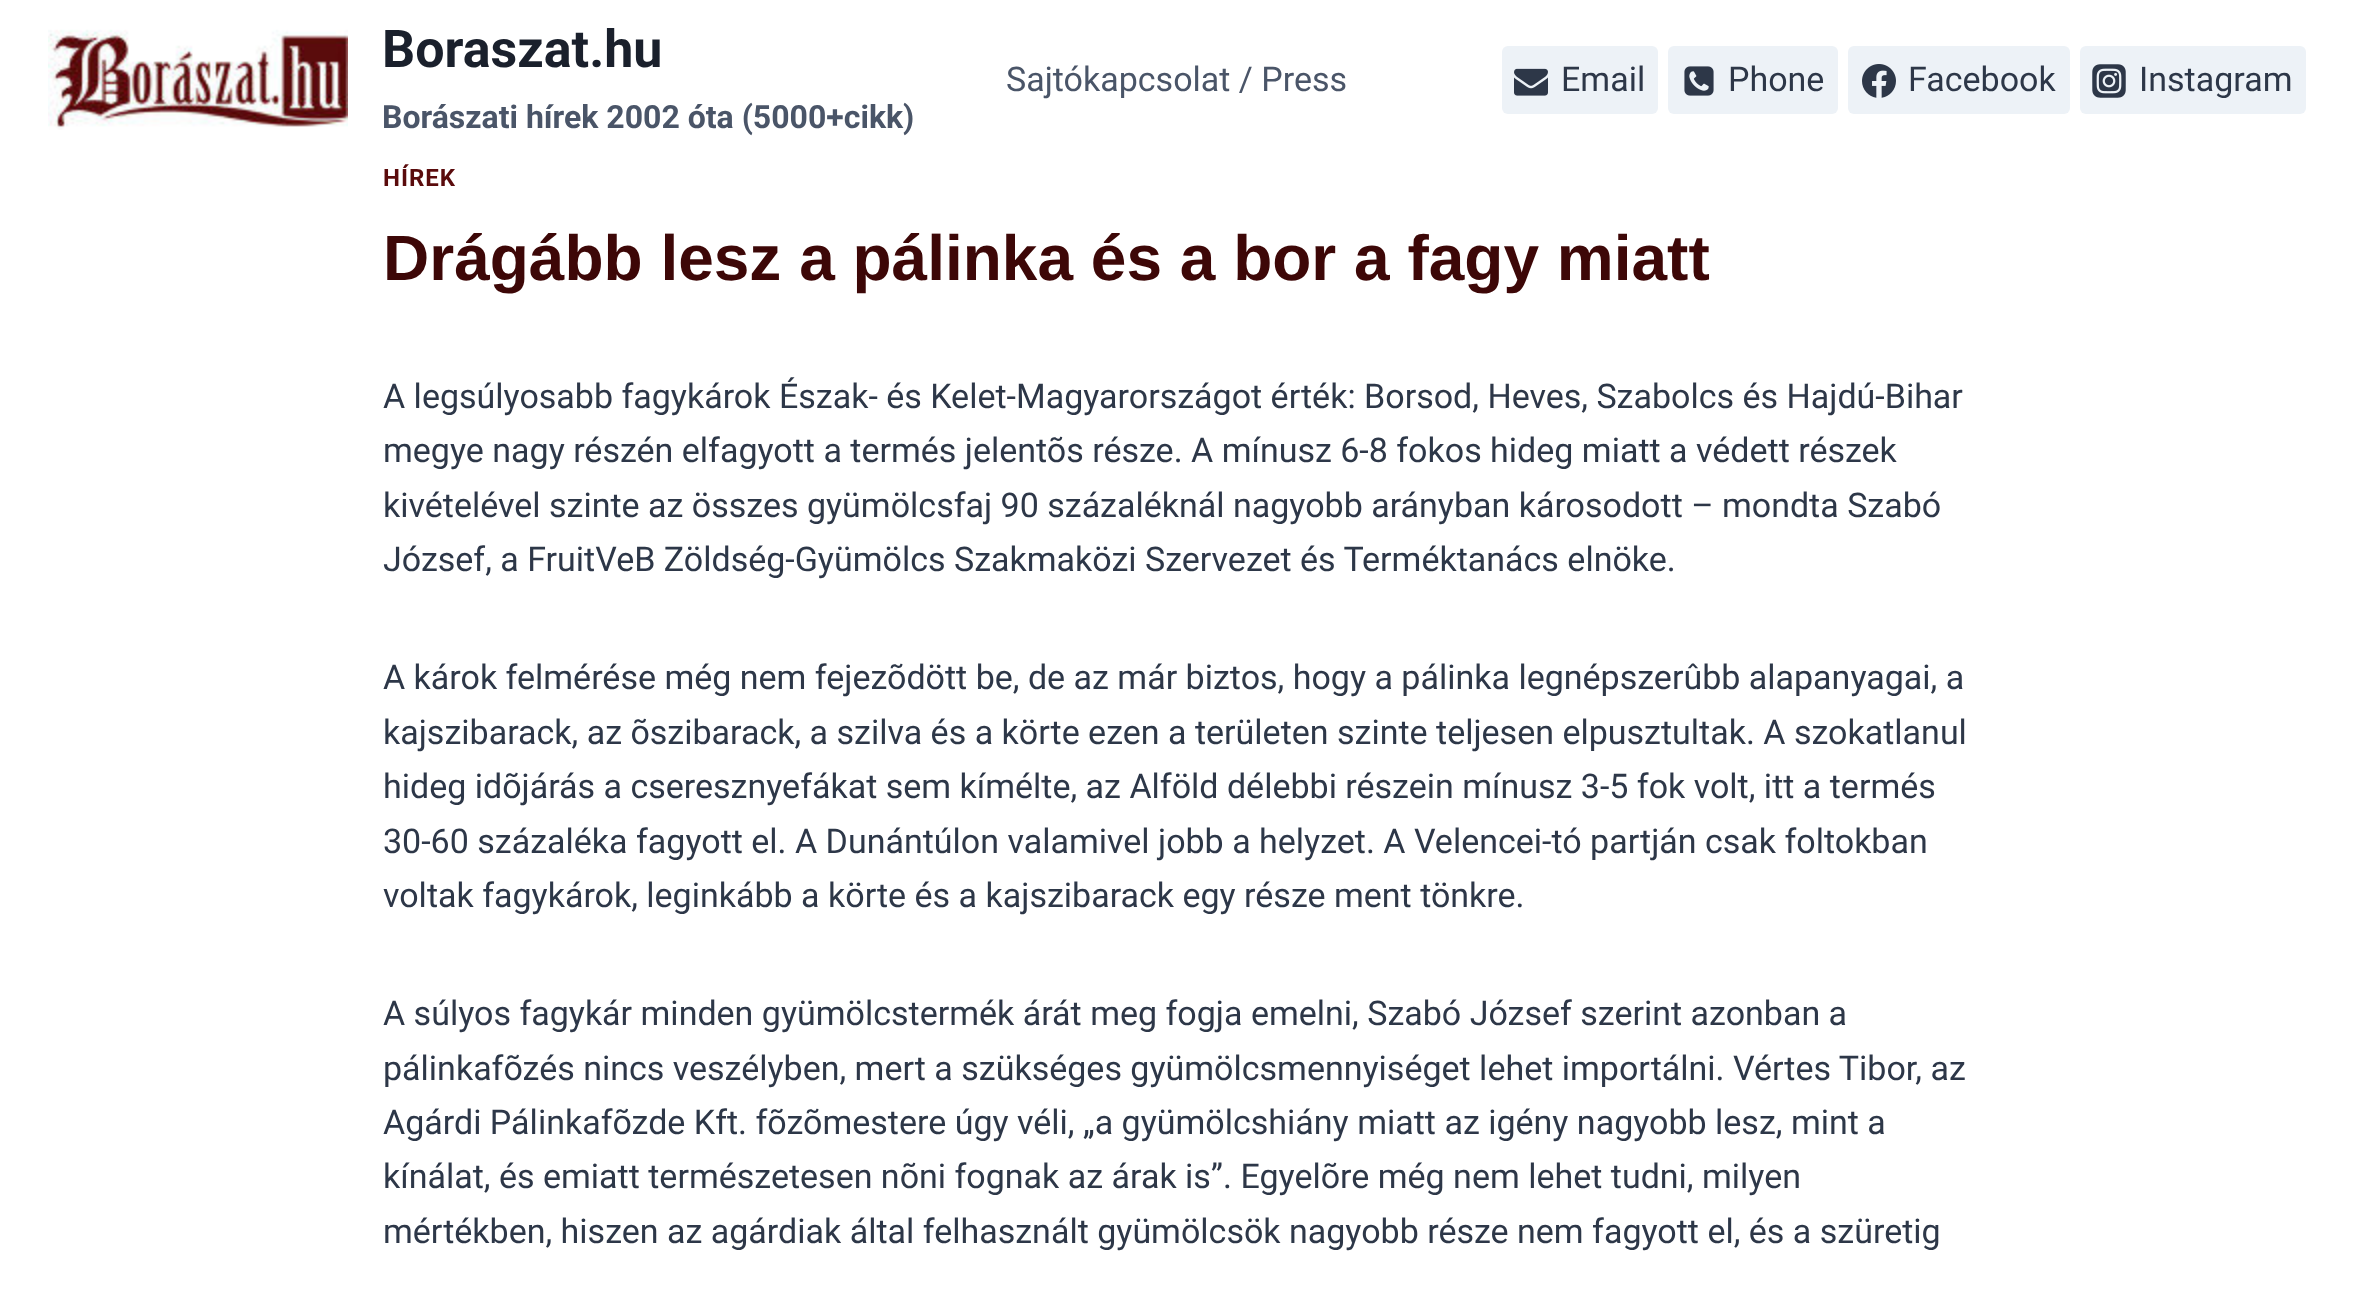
(async () => {
    const canvas = document.querySelector("canvas");
    canvas.width = 2354;
    canvas.height = 1289;
    const context = canvas.getContext("2d");
    context.miterLimit = 4;
    context.fontKerning = "normal";
    function write(s, x, y, font, color) {
        context.font = font;
        context.fillStyle = color;
        context.fillText(s, x, y);
    }
    function block(x, y, w, h, color) {
        context.fillStyle = color;
        context.fillRect(x, y, w, h);
    }
    function card(x, y, w, h, r, color) {
        context.fillStyle = color;
        context.beginPath();
        context.roundRect(x, y, w, h, r);
        context.fill();
    }
    async function photo(src, x, y, w, h) {
        const img = new Image();
        img.src = src;
        await img.decode();
        context.drawImage(img, x, y, w, h);
    }

    block(0, 0, 2354, 1289, "rgb(255, 255, 255)");
    await photo("media/1.png", 48, 29, 300, 101);
    write("Boraszat.hu", 382, 67, "bold 52px Roboto", "rgb(26, 32, 44)");
    write("Borászati hírek 2002 óta (5000+cikk)", 382, 128, "bold 32px Roboto", "rgb(74, 85, 104)");
    write("Sajtókapcsolat / Press", 1006, 91, "34px Roboto", "rgb(74, 85, 104)");
    card(1502, 46, 156, 68, 6, "rgb(237, 242, 247)");
    await photo("media/2.png", 1514, 68, 34, 28);
    write("Email", 1561, 91, "34px Roboto", "rgb(45, 55, 72)");
    card(1668, 46, 170, 68, 6, "rgb(237, 242, 247)");
    await photo("media/3.png", 1684, 66, 30, 30);
    write("Phone", 1728, 91, "34px Roboto", "rgb(45, 55, 72)");
    card(1848, 46, 222, 68, 6, "rgb(237, 242, 247)");
    await photo("media/4.png", 1862, 64, 34, 34);
    write("Facebook", 1908, 91, "34px Roboto", "rgb(45, 55, 72)");
    card(2080, 46, 226, 68, 6, "rgb(237, 242, 247)");
    await photo("media/5.png", 2092, 64, 34, 34);
    write("Instagram", 2139, 91, "34px Roboto", "rgb(45, 55, 72)");
    context.letterSpacing = "1px";
    write("HÍREK", 383, 186, "bold 24px Roboto", "rgb(90, 11, 12)");
    context.letterSpacing = "0px";
    write("Drágább lesz a pálinka és a bor a fagy miatt", 383, 280, "bold 64px Liberation Sans", "rgb(61, 7, 7)");
    write("A legsúlyosabb fagykárok Észak- és Kelet-Magyarországot érték: Borsod, Heves, Szabolcs és Hajdú-Bihar", 383, 408, "34px Roboto", "rgb(45, 55, 72)");
    write("megye nagy részén elfagyott a termés jelentõs része. A mínusz 6-8 fokos hideg miatt a védett részek", 383, 462, "34px Roboto", "rgb(45, 55, 72)");
    write("kivételével szinte az összes gyümölcsfaj 90 százaléknál nagyobb arányban károsodott – mondta Szabó", 383, 517, "34px Roboto", "rgb(45, 55, 72)");
    write("József, a FruitVeB Zöldség-Gyümölcs Szakmaközi Szervezet és Terméktanács elnöke.", 383, 571, "34px Roboto", "rgb(45, 55, 72)");
    write("A károk felmérése még nem fejezõdött be, de az már biztos, hogy a pálinka legnépszerûbb alapanyagai, a", 383, 689, "34px Roboto", "rgb(45, 55, 72)");
    write("kajszibarack, az õszibarack, a szilva és a körte ezen a területen szinte teljesen elpusztultak. A szokatlanul", 383, 744, "34px Roboto", "rgb(45, 55, 72)");
    write("hideg idõjárás a cseresznyefákat sem kímélte, az Alföld délebbi részein mínusz 3-5 fok volt, itt a termés", 383, 798, "34px Roboto", "rgb(45, 55, 72)");
    write("30-60 százaléka fagyott el. A Dunántúlon valamivel jobb a helyzet. A Velencei-tó partján csak foltokban", 383, 853, "34px Roboto", "rgb(45, 55, 72)");
    write("voltak fagykárok, leginkább a körte és a kajszibarack egy része ment tönkre.", 383, 907, "34px Roboto", "rgb(45, 55, 72)");
    write("A súlyos fagykár minden gyümölcstermék árát meg fogja emelni, Szabó József szerint azonban a", 383, 1025, "34px Roboto", "rgb(45, 55, 72)");
    write("pálinkafõzés nincs veszélyben, mert a szükséges gyümölcsmennyiséget lehet importálni. Vértes Tibor, az", 383, 1080, "34px Roboto", "rgb(45, 55, 72)");
    write("Agárdi Pálinkafõzde Kft. fõzõmestere úgy véli, „a gyümölcshiány miatt az igény nagyobb lesz, mint a", 383, 1134, "34px Roboto", "rgb(45, 55, 72)");
    write("kínálat, és emiatt természetesen nõni fognak az árak is”. Egyelõre még nem lehet tudni, milyen", 383, 1188, "34px Roboto", "rgb(45, 55, 72)");
    write("mértékben, hiszen az agárdiak által felhasznált gyümölcsök nagyobb része nem fagyott el, és a szüretig", 383, 1243, "34px Roboto", "rgb(45, 55, 72)");
})();
